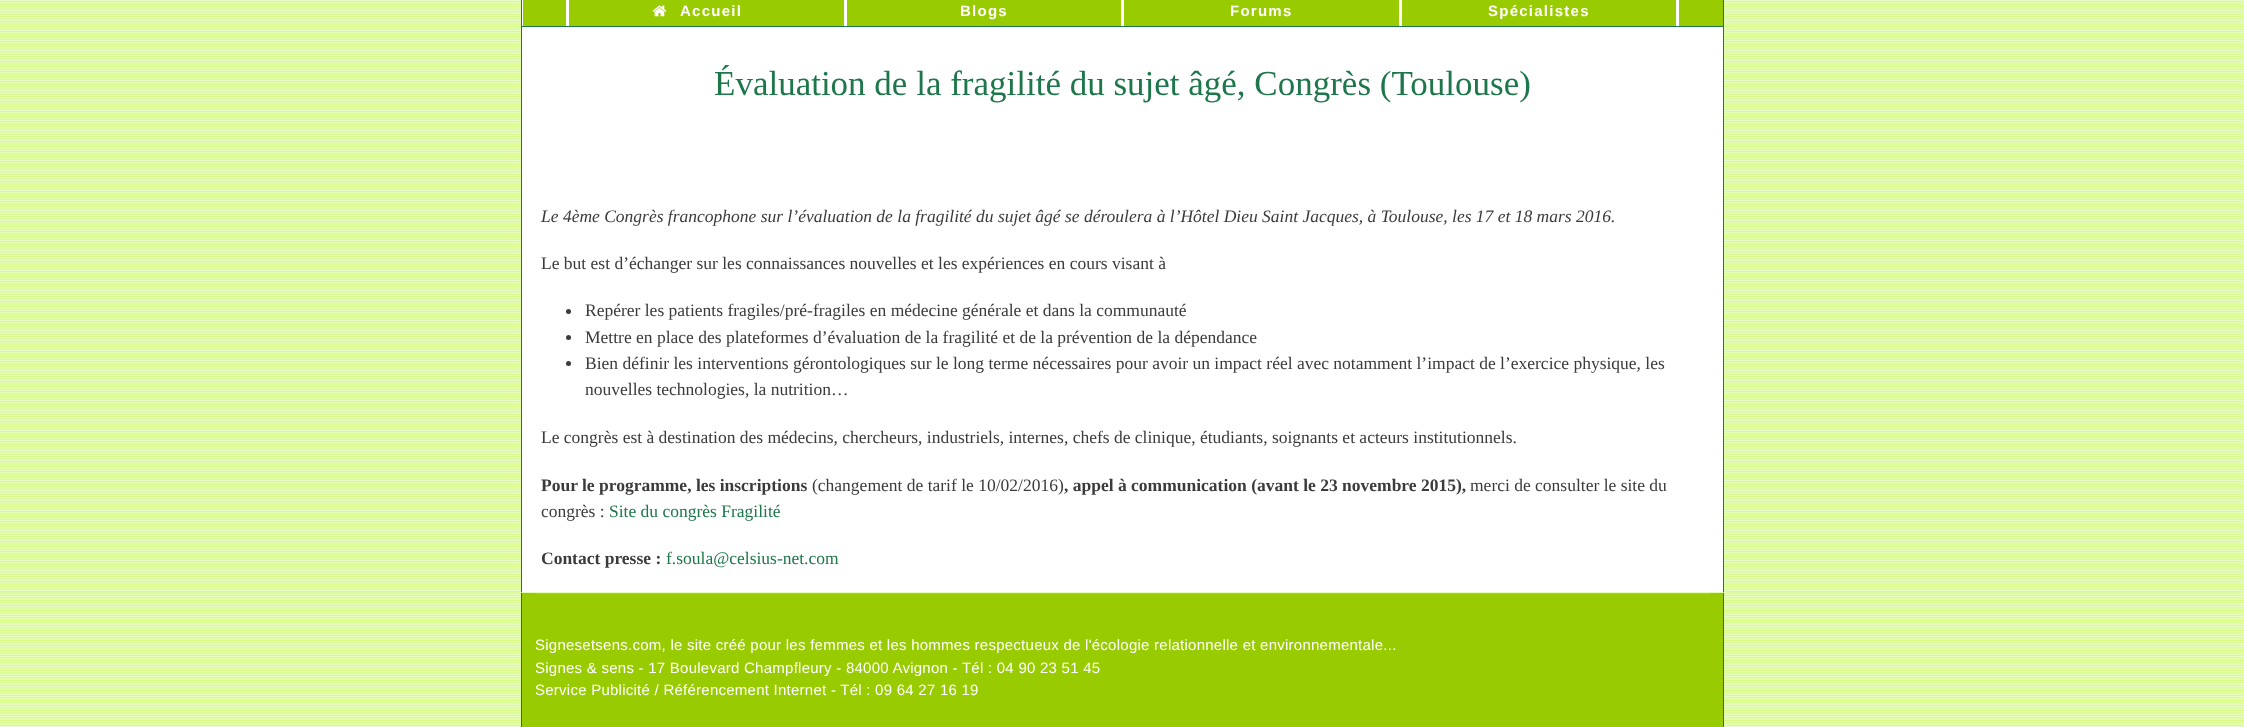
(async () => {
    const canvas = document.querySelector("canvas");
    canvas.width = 2244;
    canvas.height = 727;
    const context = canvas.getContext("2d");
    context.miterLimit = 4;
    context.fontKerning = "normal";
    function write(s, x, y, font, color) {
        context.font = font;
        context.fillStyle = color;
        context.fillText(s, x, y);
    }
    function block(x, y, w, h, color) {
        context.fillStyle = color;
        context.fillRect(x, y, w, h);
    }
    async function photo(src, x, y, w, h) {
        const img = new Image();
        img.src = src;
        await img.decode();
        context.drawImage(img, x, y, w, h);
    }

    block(0, 0, 2244, 727, "rgb(255, 255, 255)");
    await photo("media/1.png", 0, 0, 2244, 593);
    block(522, 0, 1, 26, "rgb(255, 255, 255)");
    block(523, 0, 1200, 26, "rgb(153, 204, 0)");
    block(844, 0, 3, 26, "rgb(255, 255, 255)");
    block(566, 0, 3, 26, "rgb(255, 255, 255)");
    await photo("media/2.png", 652, 5, 15, 12);
    context.letterSpacing = "1.25px";
    write("Accueil", 680, 16, "bold 15px Liberation Sans", "rgb(255, 255, 255)");
    block(1121, 0, 3, 26, "rgb(255, 255, 255)");
    write("Blogs", 960, 16, "bold 15px Liberation Sans", "rgb(255, 255, 255)");
    block(1399, 0, 3, 26, "rgb(255, 255, 255)");
    write("Forums", 1230, 16, "bold 15px Liberation Sans", "rgb(255, 255, 255)");
    block(1676, 0, 3, 26, "rgb(255, 255, 255)");
    write("Spécialistes", 1488, 16, "bold 15px Liberation Sans", "rgb(255, 255, 255)");
    block(522, 27, 1201, 566, "rgb(255, 255, 255)");
    block(521, 26, 1203, 1, "rgb(29, 119, 74)");
    block(1723, 0, 1, 593, "rgb(29, 119, 74)");
    block(521, 0, 1, 593, "rgb(29, 119, 74)");
    context.letterSpacing = "0px";
    write("Évaluation de la fragilité du sujet âgé, Congrès (Toulouse)", 714, 95, "35px Liberation Serif", "rgb(29, 119, 74)");
    write("Le 4ème Congrès francophone sur l’évaluation de la fragilité du sujet âgé se déroulera à l’Hôtel Dieu Saint Jacques, à Toulouse, les 17 et 18 mars 2016.", 541, 222, "italic 17.5px Liberation Serif", "rgb(59, 59, 59)");
    write("Le but est d’échanger sur les connaissances nouvelles et les expériences en cours visant à", 541, 269, "17.5px Liberation Serif", "rgb(59, 59, 59)");
    context.beginPath();
    context.arc(568.5, 311.5, 2.5, 0, Math.PI * 2);
    context.fill();
    write("Repérer les patients fragiles/pré-fragiles en médecine générale et dans la communauté", 585, 316, "17.5px Liberation Serif", "rgb(59, 59, 59)");
    context.beginPath();
    context.arc(568.5, 337.5, 2.5, 0, Math.PI * 2);
    context.fill();
    write("Mettre en place des plateformes d’évaluation de la fragilité et de la prévention de la dépendance", 585, 343, "17.5px Liberation Serif", "rgb(59, 59, 59)");
    context.beginPath();
    context.arc(568.5, 363.5, 2.5, 0, Math.PI * 2);
    context.fill();
    write("Bien définir les interventions gérontologiques sur le long terme nécessaires pour avoir un impact réel avec notamment l’impact de l’exercice physique, les", 585, 369, "17.5px Liberation Serif", "rgb(59, 59, 59)");
    write("nouvelles technologies, la nutrition…", 585, 395, "17.5px Liberation Serif", "rgb(59, 59, 59)");
    write("Le congrès est à destination des médecins, chercheurs, industriels, internes, chefs de clinique, étudiants, soignants et acteurs institutionnels.", 541, 443, "17.5px Liberation Serif", "rgb(59, 59, 59)");
    write("Pour le programme, les inscriptions", 541, 491, "bold 17.5px Liberation Serif", "rgb(59, 59, 59)");
    write("(changement de tarif le 10/02/2016)", 812, 491, "17.5px Liberation Serif", "rgb(59, 59, 59)");
    write(", appel à communication (avant le 23 novembre 2015),", 1064, 491, "bold 17.5px Liberation Serif", "rgb(59, 59, 59)");
    write("merci de consulter le site du", 1470, 491, "17.5px Liberation Serif", "rgb(59, 59, 59)");
    write("congrès :", 541, 517, "17.5px Liberation Serif", "rgb(59, 59, 59)");
    write("Site du congrès Fragilité", 609, 517, "17.5px Liberation Serif", "rgb(29, 119, 74)");
    write("Contact presse :", 541, 564, "bold 17.5px Liberation Serif", "rgb(59, 59, 59)");
    write("f.soula@celsius-net.com", 666, 564, "17.5px Liberation Serif", "rgb(29, 119, 74)");
    await photo("media/3.png", 0, 592, 2244, 135);
    block(522, 593, 1201, 134, "rgb(153, 204, 0)");
    block(1723, 593, 1, 134, "rgb(29, 119, 74)");
    block(521, 593, 1, 134, "rgb(29, 119, 74)");
    block(535, 593, 1175, 1, "rgb(168, 212, 38)");
    context.letterSpacing = "0.25px";
    write("Signesetsens.com, le site créé pour les femmes et les hommes respectueux de l'écologie relationnelle et environnementale...", 535, 650, "15px Liberation Sans", "rgb(255, 255, 255)");
    write("Signes & sens - 17 Boulevard Champfleury - 84000 Avignon - Tél : 04 90 23 51 45", 535, 673, "15px Liberation Sans", "rgb(255, 255, 255)");
    write("Service Publicité / Référencement Internet - Tél : 09 64 27 16 19", 535, 695, "15px Liberation Sans", "rgb(255, 255, 255)");
})();
